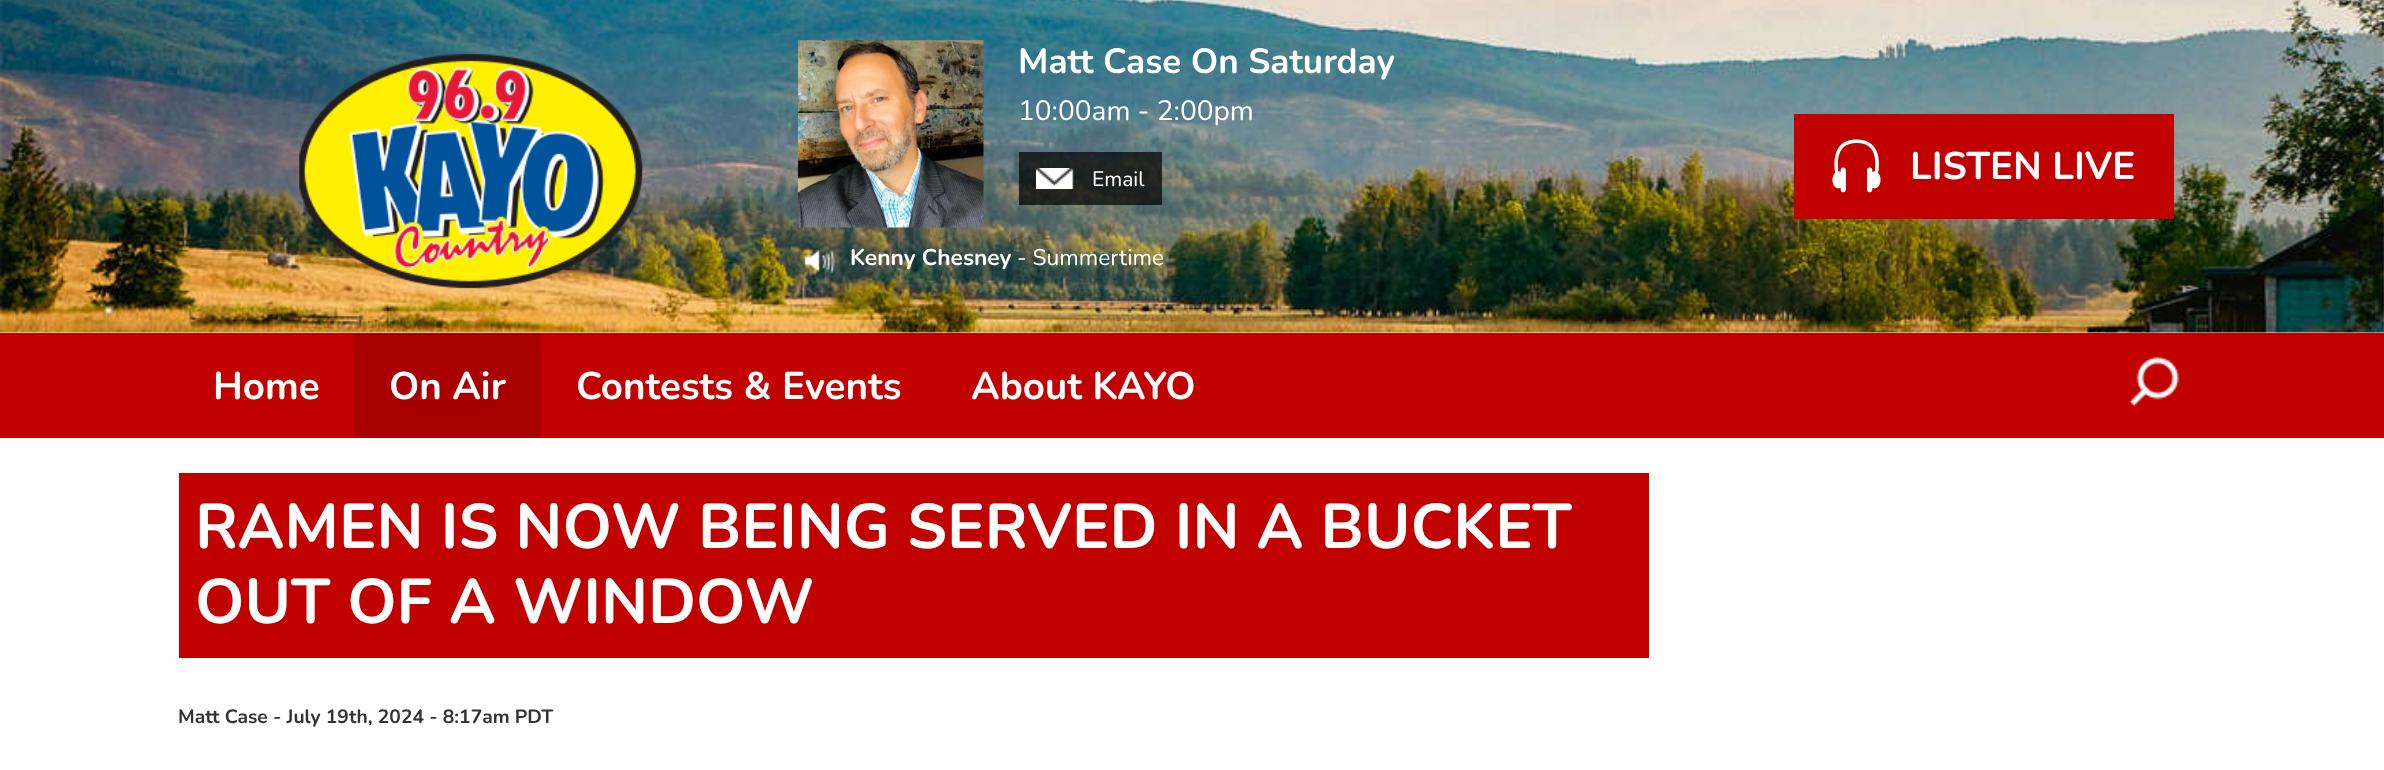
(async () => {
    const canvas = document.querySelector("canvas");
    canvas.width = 2384;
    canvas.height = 770;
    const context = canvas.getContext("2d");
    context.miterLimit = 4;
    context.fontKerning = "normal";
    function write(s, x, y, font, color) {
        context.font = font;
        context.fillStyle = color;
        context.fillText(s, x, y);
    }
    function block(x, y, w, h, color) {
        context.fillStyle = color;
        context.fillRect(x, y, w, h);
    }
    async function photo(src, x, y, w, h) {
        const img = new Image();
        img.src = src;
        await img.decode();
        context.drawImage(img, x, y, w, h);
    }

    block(0, 0, 2384, 770, "rgb(255, 255, 255)");
    await photo("media/1.png", 0, 0, 2384, 333);
    await photo("media/2.png", 299, 54, 344, 235);
    await photo("media/3.png", 798, 40, 186, 188);
    write("Matt Case On Saturday", 1018, 73, "bold 35px Nunito", "rgb(255, 255, 255)");
    write("10:00am - 2:00pm", 1018, 120, "28px Nunito", "rgb(255, 255, 255)");
    block(1019, 152, 143, 53, "rgba(0, 0, 0, 0.7)");
    await photo("media/4.png", 1036, 168, 38, 21);
    write("Email", 1092, 186, "21px Nunito", "rgb(255, 255, 255)");
    await photo("media/5.png", 804, 249, 32, 25);
    write("Kenny Chesney", 850, 265, "bold 22.75px Nunito", "rgb(255, 255, 255)");
    write("- Summertime", 1017, 265, "22.75px Nunito", "rgb(255, 255, 255)");
    block(1794, 114, 380, 105, "rgb(193, 0, 0)");
    await photo("media/6.png", 1832, 139, 49, 54);
    write("LISTEN LIVE", 1910, 179, "bold 38.5px Nunito", "rgb(255, 255, 255)");
    block(0, 333, 2384, 105, "rgb(193, 0, 0)");
    write("Home", 213, 399, "bold 38.5px Nunito", "rgb(255, 255, 255)");
    block(354, 333, 187, 105, "rgb(168, 0, 0)");
    write("On Air", 389, 399, "bold 38.5px Nunito", "rgb(255, 255, 255)");
    write("Contests & Events", 576, 399, "bold 38.5px Nunito", "rgb(255, 255, 255)");
    write("About KAYO", 971, 399, "bold 38.5px Nunito", "rgb(255, 255, 255)");
    await photo("media/7.png", 2129, 356, 51, 51);
    block(179, 473, 1470, 185, "rgb(193, 0, 0)");
    write("RAMEN IS NOW BEING SERVED IN A BUCKET", 195, 548, "bold 63px Nunito", "rgb(255, 255, 255)");
    write("OUT OF A WINDOW", 195, 623, "bold 63px Nunito", "rgb(255, 255, 255)");
    write("Matt Case - July 19th, 2024 - 8:17am PDT", 178, 723, "bold 19.25px Nunito", "rgb(51, 51, 51)");
})();
